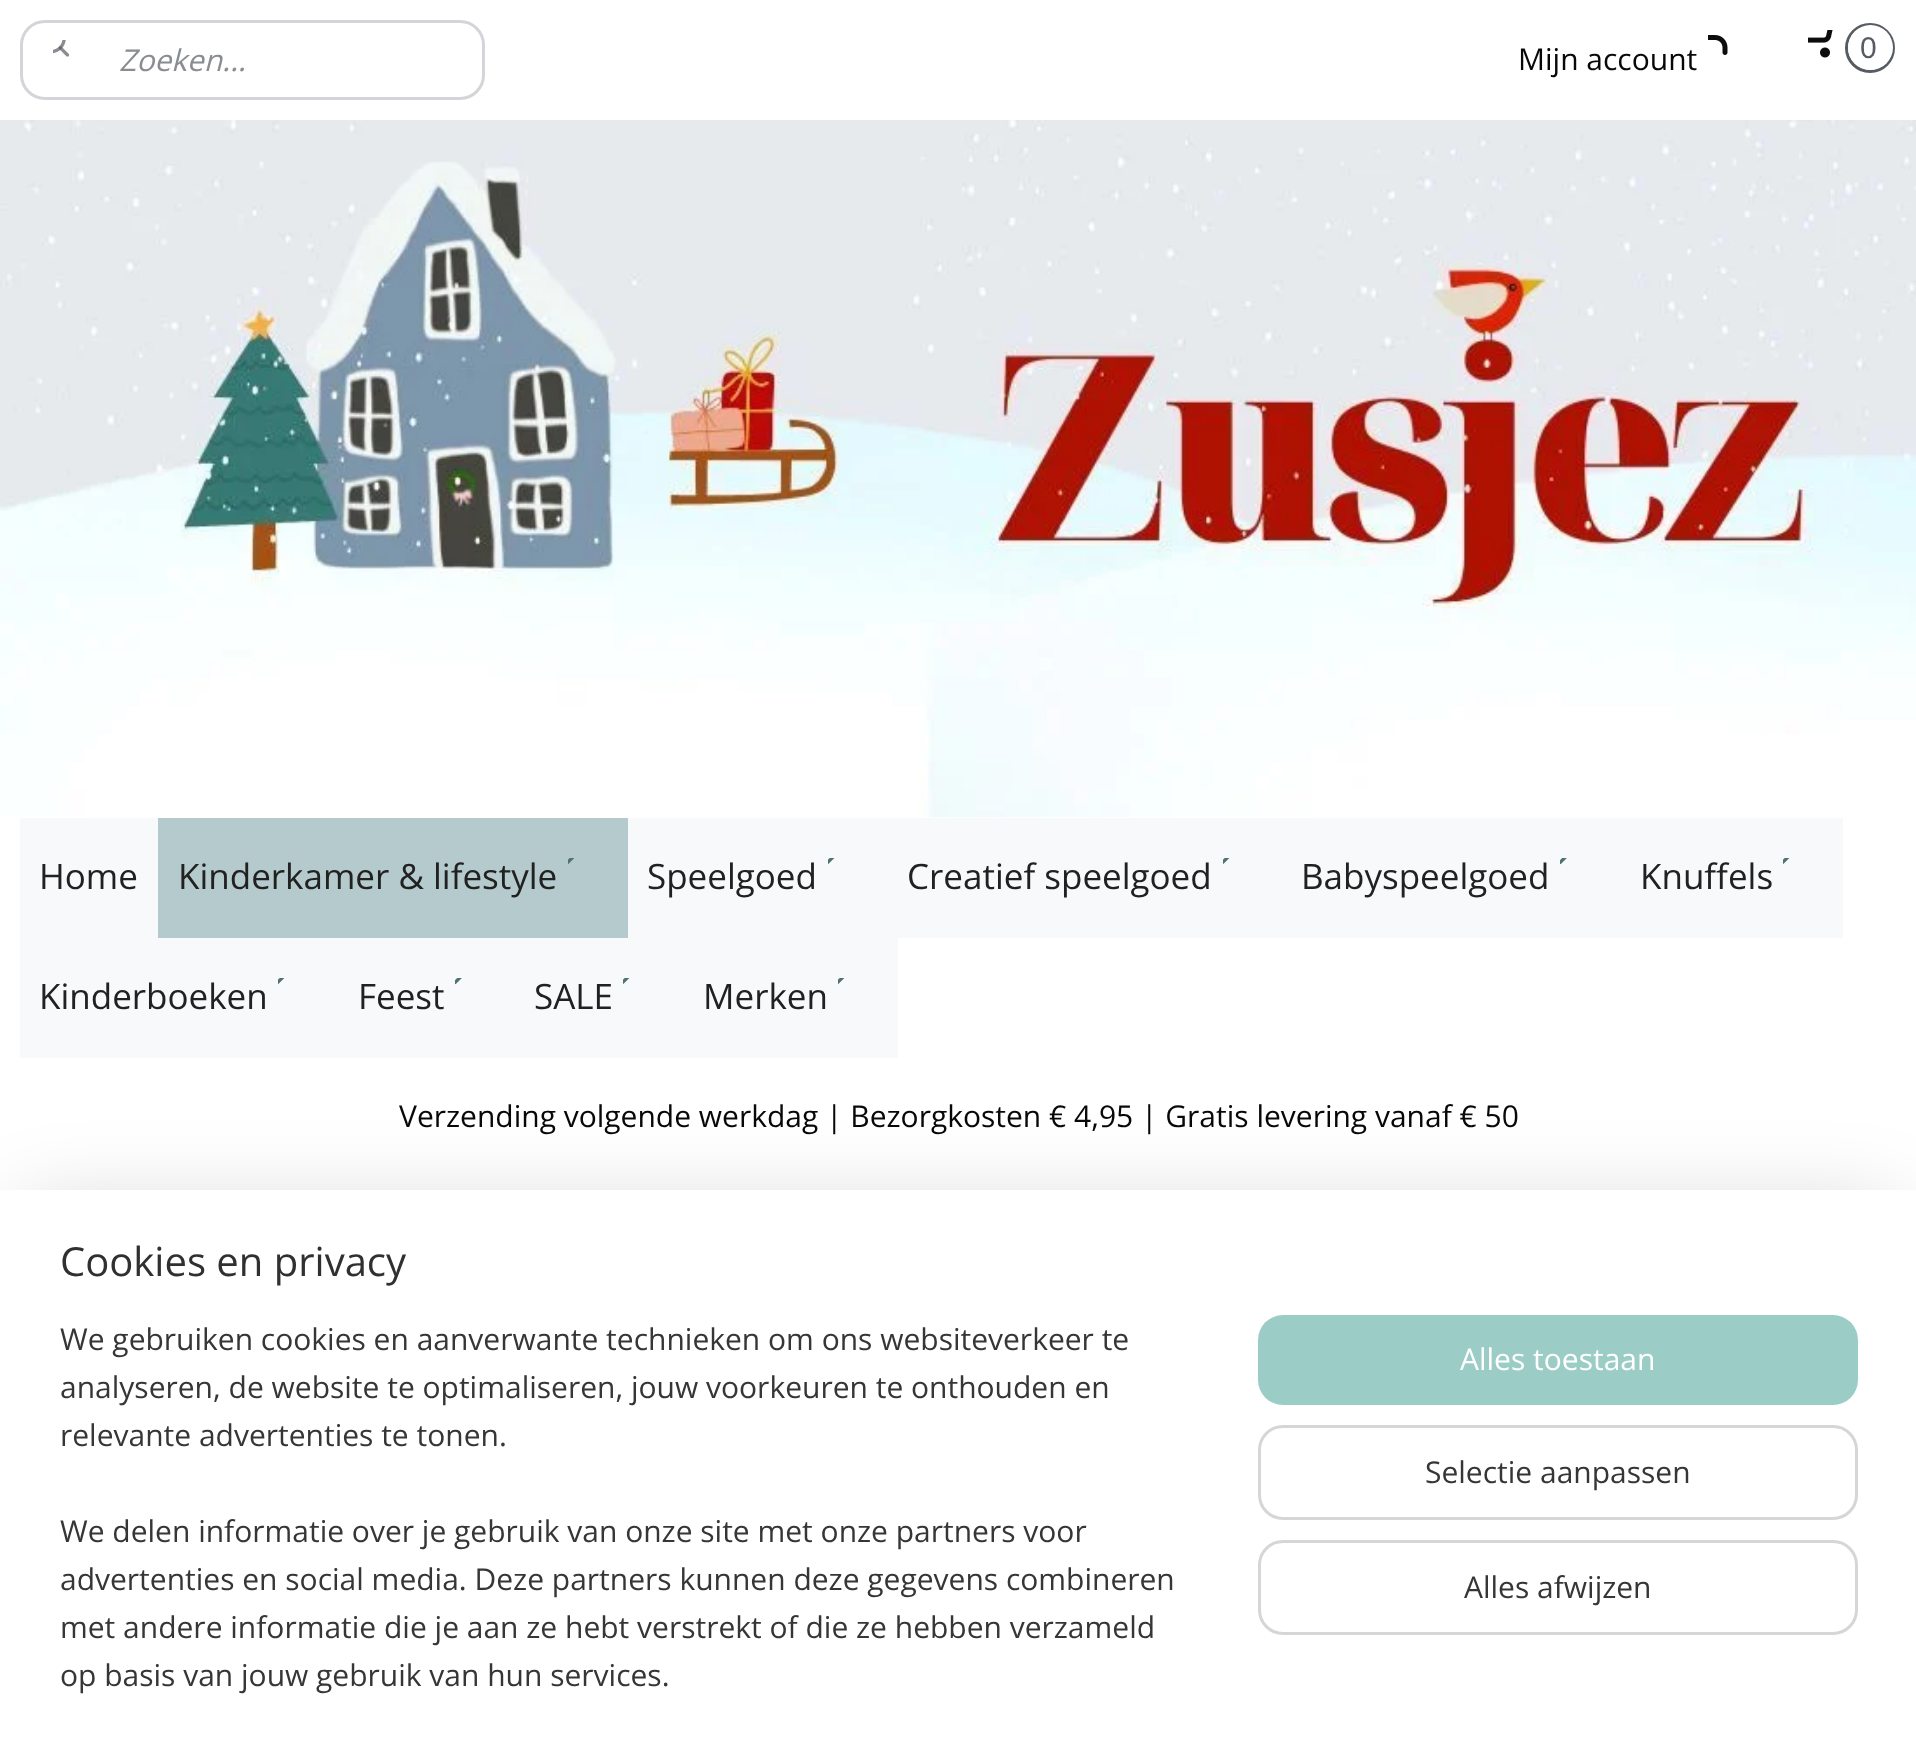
(async () => {
    const canvas = document.querySelector("canvas");
    canvas.width = 1916;
    canvas.height = 1760;
    const context = canvas.getContext("2d");
    context.miterLimit = 4;
    context.fontKerning = "normal";
    function write(s, x, y, font, color) {
        context.font = font;
        context.fillStyle = color;
        context.fillText(s, x, y);
    }
    function block(x, y, w, h, color) {
        context.fillStyle = color;
        context.fillRect(x, y, w, h);
    }
    function card(x, y, w, h, r, color) {
        context.fillStyle = color;
        context.beginPath();
        context.roundRect(x, y, w, h, r);
        context.fill();
    }
    async function photo(src, x, y, w, h) {
        const img = new Image();
        img.src = src;
        await img.decode();
        context.drawImage(img, x, y, w, h);
    }

    block(0, 0, 1916, 1760, "rgb(255, 255, 255)");
    context.beginPath();
    context.roundRect(21.5, 21.5, 462, 77, 23.5);
    context.strokeStyle = "rgb(211, 213, 217)";
    context.lineWidth = 3;
    context.stroke();
    await photo("media/1.png", 53, 40, 17, 17);
    write("Zoeken...", 119, 71, "italic 30px Open Sans", "rgb(137, 140, 145)");
    await photo("media/2.png", 1708, 35, 20, 20);
    write("Mijn account", 1518, 70, "30px Open Sans", "rgb(8, 8, 8)");
    await photo("media/3.png", 1808, 30, 25, 28);
    context.beginPath();
    context.arc(1870, 48, 23.5, 0, Math.PI * 2);
    context.strokeStyle = "rgb(87, 91, 98)";
    context.stroke();
    context.fillStyle = "rgb(255, 255, 255)";
    context.beginPath();
    context.arc(1870.5, 47.5, 22.5, 0, Math.PI * 2);
    context.fill();
    write("0", 1860, 58, "30px Liberation Sans", "rgb(87, 91, 98)");
    await photo("media/4.png", 0, 120, 1916, 698);
    block(20, 818, 138, 120, "rgb(248, 249, 251)");
    write("Home", 39, 889, "35px Open Sans", "rgb(33, 33, 33)");
    block(158, 818, 470, 120, "rgb(181, 202, 205)");
    await photo("media/5.png", 568, 858, 7, 6);
    write("Kinderkamer & lifestyle", 178, 889, "35px Open Sans", "rgb(33, 33, 33)");
    block(628, 818, 1215, 120, "rgb(248, 249, 251)");
    await photo("media/6.png", 828, 858, 7, 6);
    write("Speelgoed", 647, 889, "35px Open Sans", "rgb(33, 33, 33)");
    await photo("media/6.png", 1223, 858, 7, 6);
    write("Creatief speelgoed", 907, 889, "35px Open Sans", "rgb(33, 33, 33)");
    write("Babyspeelgoed", 1301, 889, "35px Open Sans", "rgb(33, 33, 33)");
    await photo("media/7.png", 1560, 858, 7, 7);
    await photo("media/6.png", 1783, 858, 7, 6);
    write("Knuffels", 1640, 889, "35px Open Sans", "rgb(33, 33, 33)");
    block(20, 938, 878, 120, "rgb(248, 249, 251)");
    await photo("media/6.png", 278, 978, 7, 6);
    write("Kinderboeken", 39, 1009, "35px Open Sans", "rgb(33, 33, 33)");
    await photo("media/7.png", 455, 978, 7, 7);
    write("Feest", 358, 1009, "35px Open Sans", "rgb(33, 33, 33)");
    await photo("media/6.png", 623, 978, 7, 6);
    write("SALE", 534, 1009, "35px Open Sans", "rgb(33, 33, 33)");
    await photo("media/6.png", 838, 978, 7, 6);
    write("Merken", 703, 1009, "35px Open Sans", "rgb(33, 33, 33)");
    write("Verzending volgende werkdag | Bezorgkosten € 4,95 | Gratis levering vanaf € 50", 399, 1127, "30px Open Sans", "rgb(8, 8, 8)");
    context.fillStyle = "rgba(0, 0, 0, 0.2)";
    context.filter = "blur(45px)";
    context.beginPath();
    context.rect(25, 1215, 1868, 520);
    context.fill();
    context.filter = "none";
    block(0, 1190, 1916, 570, "rgb(255, 255, 255)");
    write("Cookies en privacy", 60, 1276, "40px Open Sans", "rgb(48, 48, 48)");
    write("We gebruiken cookies en aanverwante technieken om ons websiteverkeer te", 60, 1350, "30px Open Sans", "rgb(54, 54, 54)");
    write("analyseren, de website te optimaliseren, jouw voorkeuren te onthouden en", 60, 1398, "30px Open Sans", "rgb(54, 54, 54)");
    write("relevante advertenties te tonen.", 60, 1446, "30px Open Sans", "rgb(54, 54, 54)");
    write("We delen informatie over je gebruik van onze site met onze partners voor", 60, 1542, "30px Open Sans", "rgb(54, 54, 54)");
    write("advertenties en social media. Deze partners kunnen deze gegevens combineren", 60, 1590, "30px Open Sans", "rgb(54, 54, 54)");
    write("met andere informatie die je aan ze hebt verstrekt of die ze hebben verzameld", 60, 1638, "30px Open Sans", "rgb(54, 54, 54)");
    write("op basis van jouw gebruik van hun services.", 60, 1686, "30px Open Sans", "rgb(54, 54, 54)");
    card(1258, 1315, 600, 90, 25, "rgb(156, 204, 198)");
    write("Alles toestaan", 1460, 1370, "30px Open Sans", "rgb(255, 255, 255)");
    context.beginPath();
    context.roundRect(1259.5, 1426.5, 597, 92, 23.5);
    context.strokeStyle = "rgb(214, 214, 214)";
    context.stroke();
    write("Selectie aanpassen", 1425, 1483, "30px Open Sans", "rgb(54, 54, 54)");
    context.beginPath();
    context.roundRect(1259.5, 1541.5, 597, 92, 23.5);
    context.stroke();
    write("Alles afwijzen", 1464, 1598, "30px Open Sans", "rgb(54, 54, 54)");
})();
